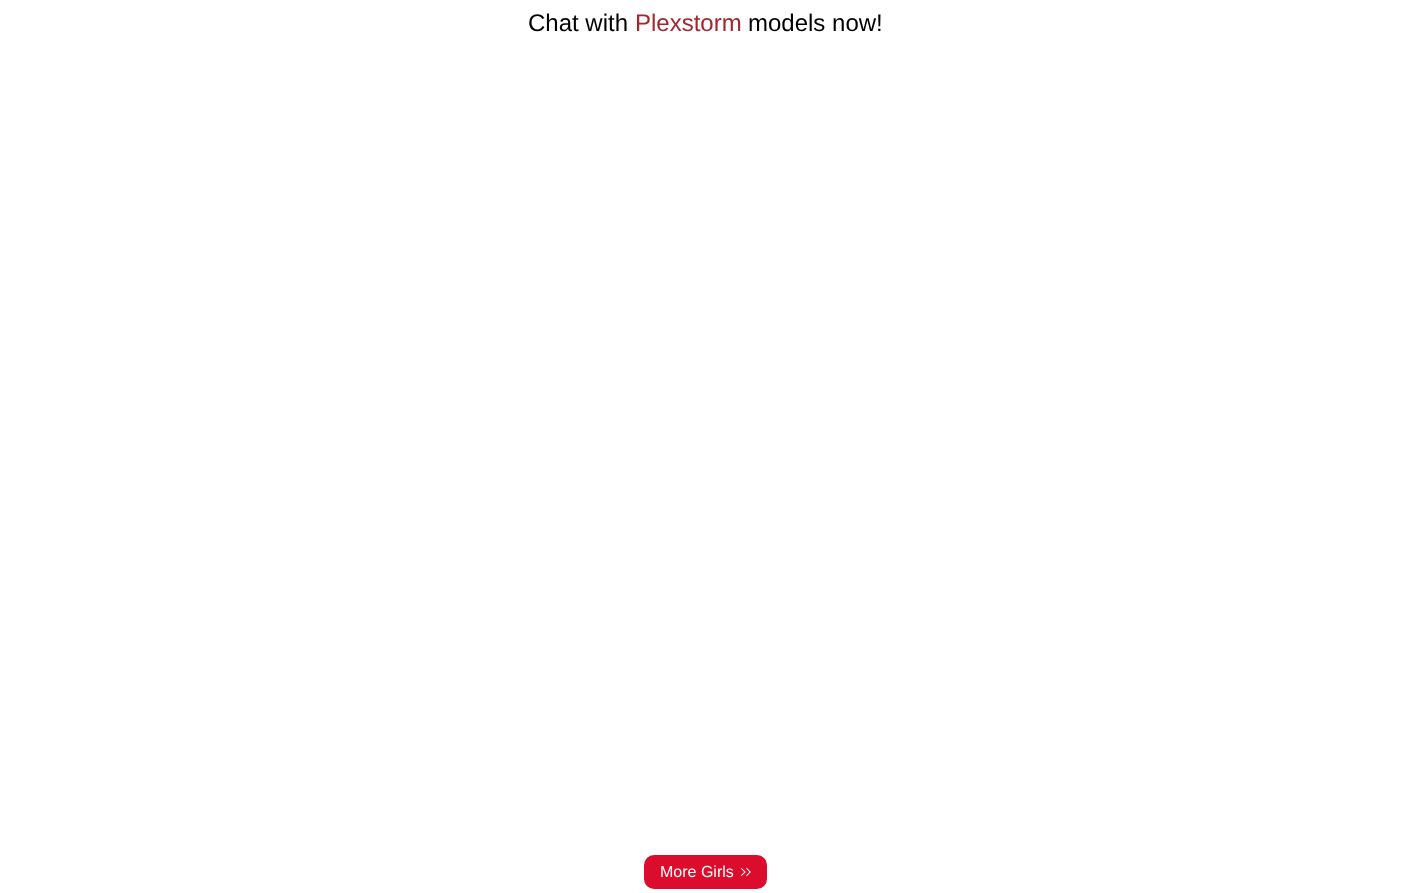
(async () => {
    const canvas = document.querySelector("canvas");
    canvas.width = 1411;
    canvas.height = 893;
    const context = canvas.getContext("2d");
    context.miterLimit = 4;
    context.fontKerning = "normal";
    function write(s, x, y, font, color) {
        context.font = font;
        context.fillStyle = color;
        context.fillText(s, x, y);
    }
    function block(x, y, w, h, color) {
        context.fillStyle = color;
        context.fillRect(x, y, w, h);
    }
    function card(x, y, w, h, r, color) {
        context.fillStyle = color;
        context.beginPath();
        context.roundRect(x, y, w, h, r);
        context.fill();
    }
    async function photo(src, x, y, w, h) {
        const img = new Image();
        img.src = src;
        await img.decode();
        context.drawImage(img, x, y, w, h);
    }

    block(0, 0, 1411, 893, "rgb(255, 255, 255)");
    write("Chat with", 528, 31, "24px Liberation Sans", "rgb(0, 0, 0)");
    write("Plexstorm", 635, 31, "24px Liberation Sans", "rgb(162, 38, 46)");
    write("models now!", 748, 31, "24px Liberation Sans", "rgb(0, 0, 0)");
    card(644, 855, 123, 34, 10, "rgb(220, 12, 44)");
    write("More Girls", 660, 877, "16px Liberation Sans", "rgb(255, 255, 255)");
    await photo("media/1.png", 741, 868, 10, 8);
})();
